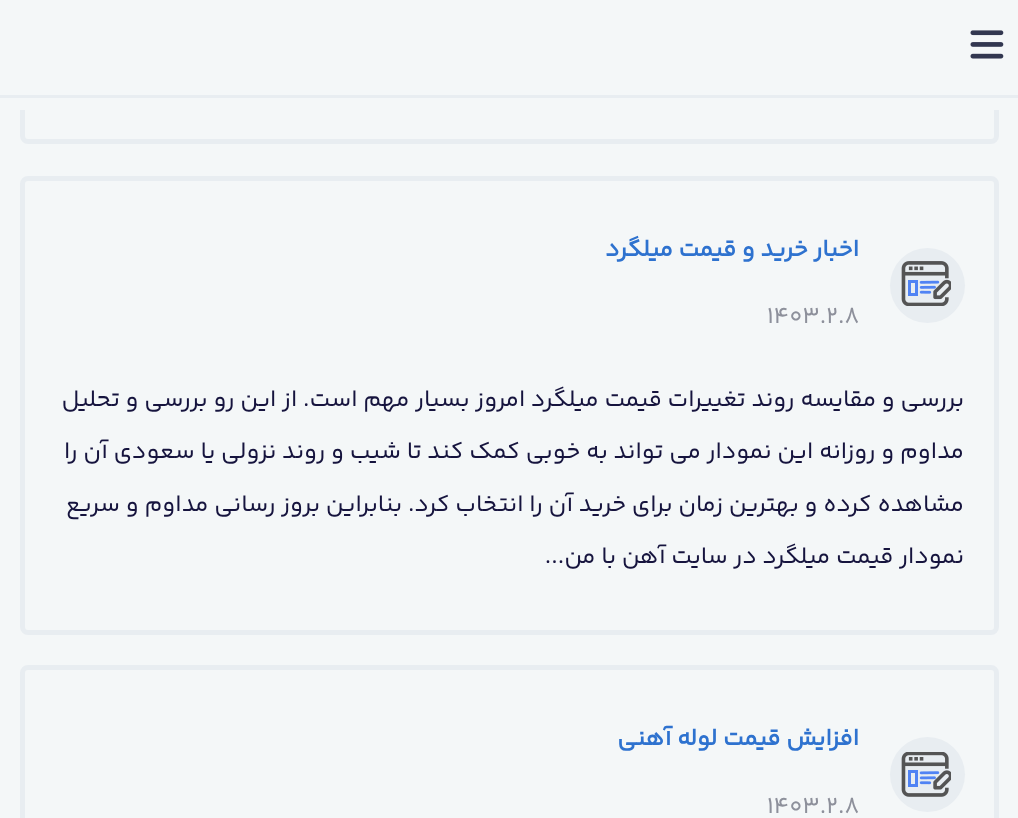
(async () => {
    const canvas = document.querySelector("canvas");
    canvas.width = 1018;
    canvas.height = 818;
    const context = canvas.getContext("2d");
    context.miterLimit = 4;
    context.fontKerning = "normal";
    function write(s, x, y, font, color) {
        context.font = font;
        context.fillStyle = color;
        context.fillText(s, x, y);
    }
    function block(x, y, w, h, color) {
        context.fillStyle = color;
        context.fillRect(x, y, w, h);
    }
    async function photo(src, x, y, w, h) {
        const img = new Image();
        img.src = src;
        await img.decode();
        context.drawImage(img, x, y, w, h);
    }

    block(0, 0, 1018, 818, "rgb(244, 247, 248)");
    context.beginPath();
    context.roundRect(22.5, -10.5, 974, 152, 5.5);
    context.strokeStyle = "rgb(232, 237, 241)";
    context.lineWidth = 5;
    context.stroke();
    block(20, 0, 979, 110, "rgb(244, 247, 248)");
    block(0, 95, 1018, 3, "rgb(232, 237, 241)");
    await photo("media/1.png", 970, 30, 34, 29);
    context.beginPath();
    context.roundRect(22.5, 178.5, 974, 454, 5.5);
    context.stroke();
    context.beginPath();
    context.arc(927.5, 285.5, 37.5, 0, Math.PI * 2);
    context.fill();
    await photo("media/2.png", 901, 261, 50, 45);
    context.direction = "rtl";
    write("اخبار خرید و قیمت میلگرد", 859, 256, "bold 24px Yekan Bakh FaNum", "rgb(46, 114, 207)");
    context.direction = "ltr";
    write("1403.2.8", 767, 323, "24px Yekan Bakh FaNum", "rgb(141, 144, 155)");
    context.direction = "rtl";
    write("بررسی و مقایسه روند تغییرات قیمت میلگرد امروز بسیار مهم است. از این رو بررسی و تحلیل", 964, 406, "24px Yekan Bakh FaNum", "rgb(22, 20, 62)");
    write("مداوم و روزانه این نمودار می تواند به خوبی کمک کند تا شیب و روند نزولی یا سعودی آن را", 964, 458, "24px Yekan Bakh FaNum", "rgb(22, 20, 62)");
    write("مشاهده کرده و بهترین زمان برای خرید آن را انتخاب کرد. بنابراین بروز رسانی مداوم و سریع", 964, 511, "24px Yekan Bakh FaNum", "rgb(22, 20, 62)");
    write("نمودار قیمت میلگرد در سایت آهن با من...", 964, 563, "24px Yekan Bakh FaNum", "rgb(22, 20, 62)");
    context.beginPath();
    context.roundRect(22.5, 667.5, 974, 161, 5.5);
    context.stroke();
    context.fillStyle = "rgb(232, 237, 241)";
    context.beginPath();
    context.arc(927.5, 774.5, 37.5, 0, Math.PI * 2);
    context.fill();
    await photo("media/3.png", 901, 752, 50, 45);
    write("افزایش قیمت لوله آهنی", 859, 745, "bold 24px Yekan Bakh FaNum", "rgb(46, 114, 207)");
    context.direction = "ltr";
    write("1403.2.8", 767, 813, "24px Yekan Bakh FaNum", "rgb(141, 144, 155)");
})();
